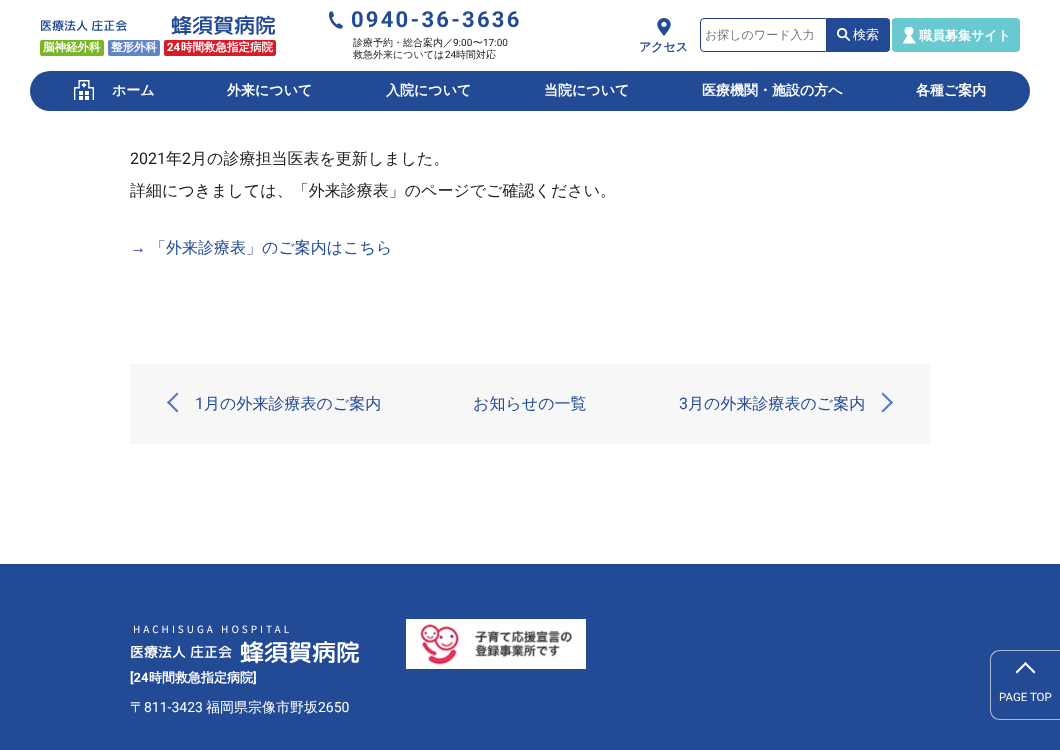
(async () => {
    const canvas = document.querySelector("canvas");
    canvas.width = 1060;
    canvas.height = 750;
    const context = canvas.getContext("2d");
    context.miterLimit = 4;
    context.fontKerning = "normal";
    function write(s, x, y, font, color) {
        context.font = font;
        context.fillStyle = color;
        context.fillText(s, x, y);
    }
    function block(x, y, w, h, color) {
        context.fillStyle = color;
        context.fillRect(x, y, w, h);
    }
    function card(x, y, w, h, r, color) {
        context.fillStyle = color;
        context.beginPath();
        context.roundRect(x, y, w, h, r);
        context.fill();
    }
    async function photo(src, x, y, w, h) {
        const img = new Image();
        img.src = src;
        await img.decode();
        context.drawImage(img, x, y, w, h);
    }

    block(0, 0, 1060, 750, "rgb(255, 255, 255)");
    write("医療法人 庄正会", 40, 30, "500 12px 'Rounded Mplus 1c'", "rgb(35, 74, 149)");
    write("蜂須賀病院", 171, 33, "500 21px 'Rounded Mplus 1c'", "rgb(35, 74, 149)");
    card(40, 40, 64, 16, 2, "rgb(121, 183, 38)");
    write("脳神経外科", 43, 51, "bold 11.5px WenQuanYi Zen Hei", "rgb(255, 255, 255)");
    card(108, 40, 52, 16, 2, "rgb(99, 132, 203)");
    write("整形外科", 111, 51, "bold 11.5px WenQuanYi Zen Hei", "rgb(255, 255, 255)");
    card(164, 40, 112, 16, 2, "rgb(217, 26, 41)");
    write("24", 167, 51, "bold 11.5px Roboto", "rgb(255, 255, 255)");
    write("時間救急指定病院", 181, 51, "bold 11.5px WenQuanYi Zen Hei", "rgb(255, 255, 255)");
    await photo("media/1.png", 329, 11, 14, 18);
    context.letterSpacing = "2.25px";
    write("0940-36-3636", 351, 27, "bold 22px Roboto", "rgb(35, 74, 149)");
    context.letterSpacing = "0px";
    write("診療予約・総合案内／", 353, 46, "500 10px WenQuanYi Zen Hei", "rgb(28, 28, 28)");
    write("9:00", 453, 46, "10px Roboto", "rgb(28, 28, 28)");
    write("〜", 473, 46, "500 10px WenQuanYi Zen Hei", "rgb(28, 28, 28)");
    write("17:00", 483, 46, "10px Roboto", "rgb(28, 28, 28)");
    write("救急外来については", 353, 58, "500 10px WenQuanYi Zen Hei", "rgb(28, 28, 28)");
    write("24", 445, 58, "10px Roboto", "rgb(28, 28, 28)");
    write("時間対応", 456, 58, "500 10px WenQuanYi Zen Hei", "rgb(28, 28, 28)");
    context.beginPath();
    context.roundRect(700.5, 18.5, 126, 33, [3.5, 0, 0, 3.5]);
    context.strokeStyle = "rgb(33, 64, 136)";
    context.stroke();
    write("お探しのワード入力", 705, 39, "500 12px WenQuanYi Zen Hei", "rgb(117, 117, 117)");
    context.fillStyle = "rgb(35, 74, 149)";
    context.beginPath();
    context.roundRect(827, 18, 63, 34, [0, 4, 4, 0]);
    context.fill();
    await photo("media/2.png", 837, 28, 13, 13);
    write("検索", 853, 39, "500 13px WenQuanYi Zen Hei", "rgb(255, 255, 255)");
    card(892, 18, 128, 34, 4, "rgb(105, 201, 209)");
    context.fillStyle = "rgb(255, 255, 255)";
    context.beginPath();
    context.moveTo(902.5, 43.5);
    context.lineTo(916, 43.5);
    context.lineTo(909, 33);
    context.closePath();
    context.fill("evenodd");
    context.save();
    context.beginPath();
    context.rect(902, 27, 14, 17);
    context.clip();
    context.beginPath();
    context.arc(909, 31, 4.5, 0, Math.PI * 2);
    context.fill();
    context.restore();
    write("職員募集サイト", 919, 40, "bold 13px WenQuanYi Zen Hei", "rgb(255, 255, 255)");
    await photo("media/3.png", 657, 18, 14, 18);
    write("アクセス", 639, 51, "bold 12px WenQuanYi Zen Hei", "rgb(35, 74, 149)");
    card(30, 71, 1000, 40, 20, "rgb(35, 74, 149)");
    await photo("media/4.png", 74, 80, 20, 20);
    write("ホーム", 112, 95, "bold 14px WenQuanYi Zen Hei", "rgb(255, 255, 255)");
    write("外来について", 227, 95, "bold 14px WenQuanYi Zen Hei", "rgb(255, 255, 255)");
    write("入院について", 386, 95, "bold 14px WenQuanYi Zen Hei", "rgb(255, 255, 255)");
    write("当院について", 544, 95, "bold 14px WenQuanYi Zen Hei", "rgb(255, 255, 255)");
    write("医療機関・施設の方へ", 702, 95, "bold 14px WenQuanYi Zen Hei", "rgb(255, 255, 255)");
    write("各種ご案内", 916, 95, "bold 14px WenQuanYi Zen Hei", "rgb(255, 255, 255)");
    write("2021", 130, 164, "16px Roboto", "rgb(28, 28, 28)");
    write("年", 166, 164, "500 16px WenQuanYi Zen Hei", "rgb(28, 28, 28)");
    write("2", 182, 164, "16px Roboto", "rgb(28, 28, 28)");
    write("月の診療担当医表を更新しました。", 191, 164, "500 16px WenQuanYi Zen Hei", "rgb(28, 28, 28)");
    write("詳細につきましては、「外来診療表」のページでご確認ください。", 130, 196, "500 16px WenQuanYi Zen Hei", "rgb(28, 28, 28)");
    write("→", 130, 253, "16px Liberation Sans", "rgb(51, 51, 153)");
    write("「外来診療表」のご案内はこちら", 150, 253, "500 16px WenQuanYi Zen Hei", "rgb(35, 74, 149)");
    block(130, 364, 800, 80, "rgb(247, 247, 247)");
    context.fillStyle = "rgb(89, 120, 194)";
    context.beginPath();
    context.moveTo(177, 412.5);
    context.lineTo(167, 402.5);
    context.lineTo(168.5, 401);
    context.lineTo(178.5, 411);
    context.closePath();
    context.fill();
    context.beginPath();
    context.moveTo(168.5, 404);
    context.lineTo(167, 402.5);
    context.lineTo(177, 392.5);
    context.lineTo(178.5, 394);
    context.closePath();
    context.fill();
    write("1", 195, 409, "16px Roboto", "rgb(35, 74, 149)");
    write("月の外来診療表のご案内", 204, 409, "500 16px WenQuanYi Zen Hei", "rgb(35, 74, 149)");
    write("お知らせの一覧", 473, 409, "500 16px WenQuanYi Zen Hei", "rgb(35, 74, 149)");
    write("3", 679, 409, "16px Roboto", "rgb(35, 74, 149)");
    write("月の外来診療表のご案内", 688, 409, "500 16px WenQuanYi Zen Hei", "rgb(35, 74, 149)");
    context.fillStyle = "rgb(89, 120, 194)";
    context.beginPath();
    context.moveTo(883, 392.5);
    context.lineTo(893, 402.5);
    context.lineTo(891.5, 404);
    context.lineTo(881.5, 394);
    context.closePath();
    context.fill();
    context.beginPath();
    context.moveTo(891.5, 401);
    context.lineTo(893, 402.5);
    context.lineTo(883, 412.5);
    context.lineTo(881.5, 411);
    context.closePath();
    context.fill();
    block(0, 564, 1060, 186, "rgb(35, 74, 149)");
    context.letterSpacing = "3px";
    write("HACHISUGA HOSPITAL", 133, 633, "100 10px Noto Sans JP", "rgb(255, 255, 255)");
    context.letterSpacing = "0px";
    write("医療法人 庄正会", 130, 657, "500 14px 'Rounded Mplus 1c'", "rgb(255, 255, 255)");
    write("蜂須賀病院", 240, 661, "500 24px 'Rounded Mplus 1c'", "rgb(255, 255, 255)");
    write("[24", 130, 682, "bold 13px Roboto", "rgb(255, 255, 255)");
    write("時間救急指定病院", 149, 682, "bold 13px WenQuanYi Zen Hei", "rgb(255, 255, 255)");
    write("]", 253, 682, "bold 13px Roboto", "rgb(255, 255, 255)");
    write("〒", 130, 712, "500 14px WenQuanYi Zen Hei", "rgb(255, 255, 255)");
    write("811-3423", 144, 712, "14px Roboto", "rgb(255, 255, 255)");
    write("福岡県宗像市野坂", 206, 712, "500 14px WenQuanYi Zen Hei", "rgb(255, 255, 255)");
    write("2650", 318, 712, "14px Roboto", "rgb(255, 255, 255)");
    await photo("media/5.png", 406, 619, 180, 50);
    context.fillStyle = "rgb(167, 183, 213)";
    context.beginPath();
    context.moveTo(1000, 650);
    context.lineTo(1060, 650);
    context.lineTo(1060, 720);
    context.lineTo(1000, 720);
    context.bezierCurveTo(994, 720, 990, 716, 990, 710);
    context.lineTo(990, 660);
    context.bezierCurveTo(990, 654, 994, 650, 1000, 650);
    context.closePath();
    context.moveTo(1000, 651);
    context.lineTo(1060, 651);
    context.lineTo(1060, 719);
    context.lineTo(1000, 719);
    context.bezierCurveTo(995, 719, 991, 715, 991, 710);
    context.lineTo(991, 660);
    context.bezierCurveTo(991, 655, 995, 651, 1000, 651);
    context.closePath();
    context.fill("evenodd");
    context.fillStyle = "rgb(255, 255, 255)";
    context.beginPath();
    context.moveTo(1015.5, 672);
    context.lineTo(1025.5, 662);
    context.lineTo(1027, 663.5);
    context.lineTo(1017, 673.5);
    context.closePath();
    context.fill();
    context.beginPath();
    context.moveTo(1024, 663.5);
    context.lineTo(1025.5, 662);
    context.lineTo(1035.5, 672);
    context.lineTo(1034, 673.5);
    context.closePath();
    context.fill();
    write("PAGE TOP", 999, 701, "11.5px Roboto", "rgb(255, 255, 255)");
})();
